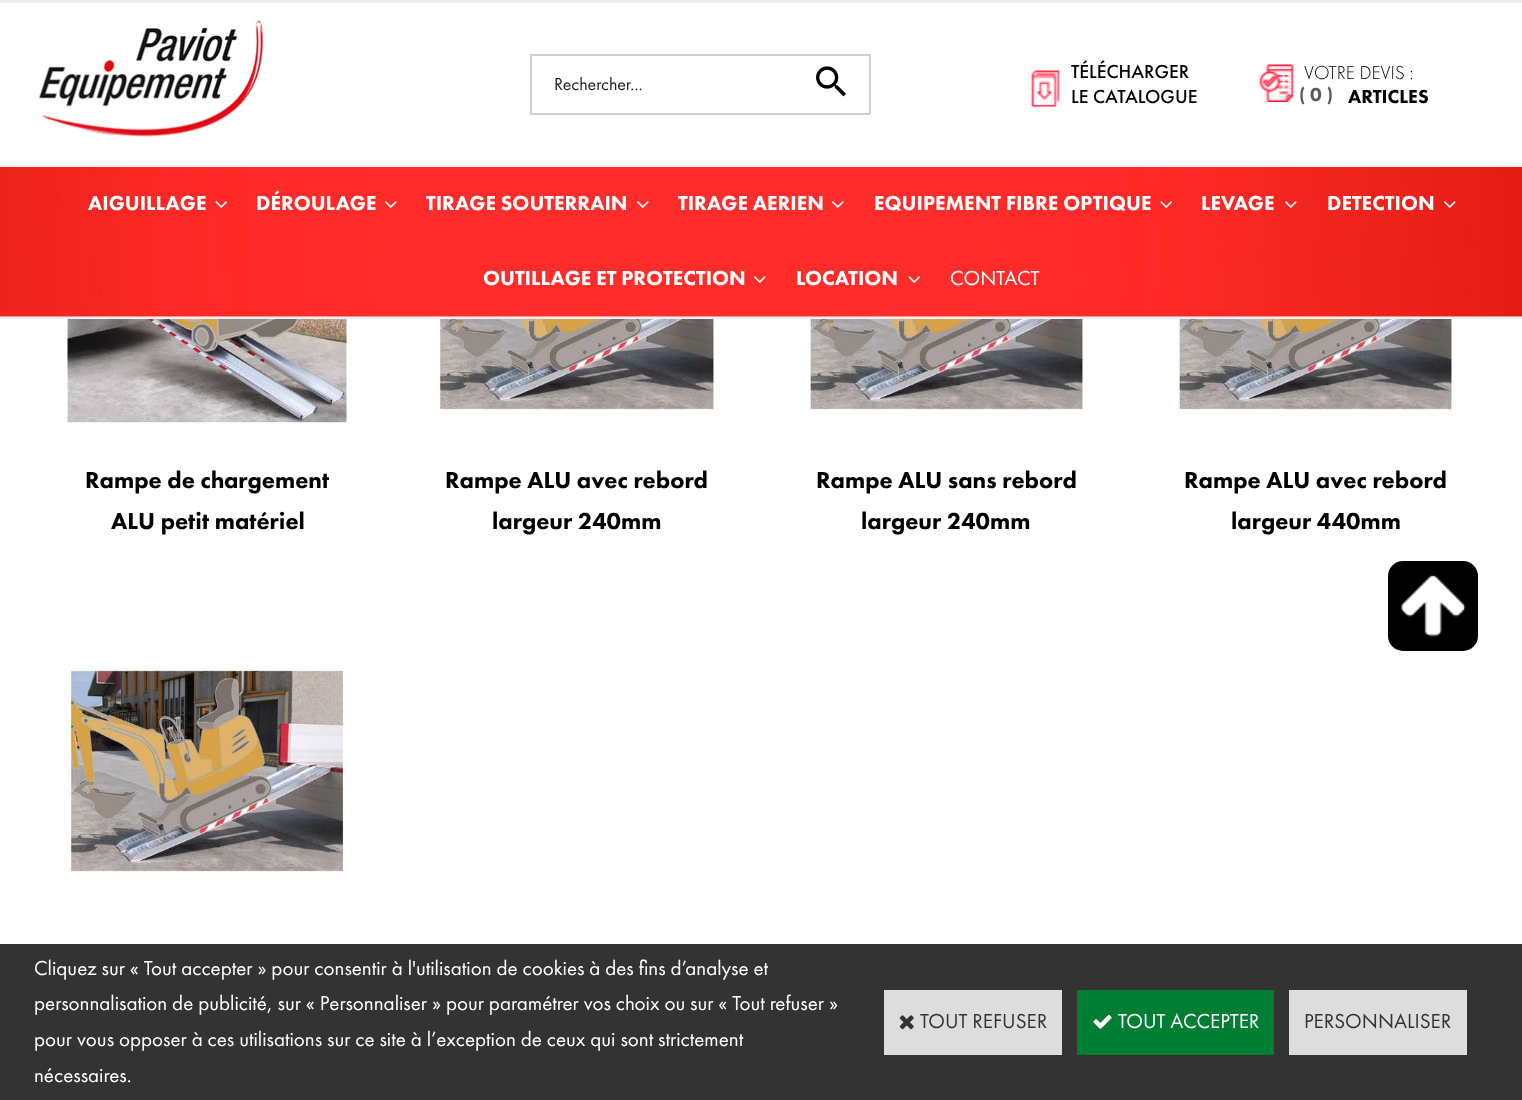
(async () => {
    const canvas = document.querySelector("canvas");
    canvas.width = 1522;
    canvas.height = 1100;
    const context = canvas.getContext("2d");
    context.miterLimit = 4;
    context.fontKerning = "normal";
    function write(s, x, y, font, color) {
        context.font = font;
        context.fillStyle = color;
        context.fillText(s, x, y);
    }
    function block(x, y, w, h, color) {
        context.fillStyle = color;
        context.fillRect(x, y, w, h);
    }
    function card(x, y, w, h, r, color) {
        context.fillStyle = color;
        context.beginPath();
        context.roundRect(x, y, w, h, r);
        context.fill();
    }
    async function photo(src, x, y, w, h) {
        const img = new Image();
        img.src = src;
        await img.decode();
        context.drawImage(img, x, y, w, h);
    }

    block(0, 0, 1522, 1100, "rgb(255, 255, 255)");
    block(0, 0, 1522, 3, "rgb(240, 240, 240)");
    await photo("media/1.png", 39, 20, 225, 117);
    block(530, 54, 340, 2, "rgb(208, 208, 208)");
    block(530, 113, 264, 2, "rgb(208, 208, 208)");
    block(530, 54, 2, 60, "rgb(208, 208, 208)");
    write("Rechercher...", 554, 90, "18px Futura PT", "rgb(26, 31, 38)");
    block(869, 54, 2, 60, "rgb(208, 208, 208)");
    block(794, 113, 76, 2, "rgb(208, 208, 208)");
    await photo("media/2.png", 816, 66, 30, 31);
    await photo("media/3.png", 1031, 70, 29, 37);
    write("TÉLÉCHARGER", 1071, 78, "500 19.5px Futura PT", "rgb(0, 0, 0)");
    write("LE CATALOGUE", 1071, 103, "500 19.5px Futura PT", "rgb(0, 0, 0)");
    await photo("media/4.png", 1259, 64, 35, 38);
    write("VOTRE DEVIS :", 1304, 79, "300 19.5px Futura PT", "rgb(0, 0, 0)");
    write("( 0 )", 1299, 101, "900 19.5px Futura PT", "rgb(90, 90, 90)");
    write("ARTICLES", 1348, 103, "900 19.5px Futura PT", "rgb(0, 0, 0)");
    await photo("media/5.png", 0, 167, 1522, 150);
    block(0, 165, 1522, 2, "rgb(241, 241, 241)");
    block(0, 317, 1522, 2, "rgb(241, 241, 241)");
    write("AIGUILLAGE", 88, 210, "900 21px Futura PT", "rgb(255, 255, 255)");
    await photo("media/6.png", 215, 201, 12, 7);
    write("DÉROULAGE", 256, 210, "900 21px Futura PT", "rgb(255, 255, 255)");
    await photo("media/7.png", 385, 201, 12, 7);
    write("TIRAGE SOUTERRAIN", 426, 210, "900 21px Futura PT", "rgb(255, 255, 255)");
    await photo("media/8.png", 637, 201, 12, 7);
    write("TIRAGE AERIEN", 678, 210, "900 21px Futura PT", "rgb(255, 255, 255)");
    await photo("media/8.png", 832, 201, 12, 7);
    write("EQUIPEMENT FIBRE OPTIQUE", 874, 210, "900 21px Futura PT", "rgb(255, 255, 255)");
    await photo("media/9.png", 1160, 201, 12, 7);
    write("LEVAGE", 1201, 210, "900 21px Futura PT", "rgb(255, 255, 255)");
    await photo("media/10.png", 1285, 201, 12, 7);
    write("DETECTION", 1327, 210, "900 21px Futura PT", "rgb(255, 255, 255)");
    await photo("media/11.png", 1444, 201, 12, 7);
    write("OUTILLAGE ET PROTECTION", 483, 285, "900 21px Futura PT", "rgb(255, 255, 255)");
    await photo("media/8.png", 754, 276, 12, 7);
    write("LOCATION", 796, 285, "900 21px Futura PT", "rgb(255, 255, 255)");
    await photo("media/12.png", 908, 276, 12, 7);
    write("CONTACT", 950, 285, "21px Futura PT", "rgb(255, 255, 255)");
    await photo("media/13.png", 67, 319, 280, 105);
    write("Rampe de chargement", 85, 488, "900 24px Futura PT", "rgb(0, 0, 0)");
    write("ALU petit matériel", 111, 529, "900 24px Futura PT", "rgb(0, 0, 0)");
    await photo("media/14.png", 436, 319, 281, 92);
    write("Rampe ALU avec rebord", 445, 488, "900 24px Futura PT", "rgb(0, 0, 0)");
    write("largeur 240mm", 492, 529, "900 24px Futura PT", "rgb(0, 0, 0)");
    await photo("media/15.png", 807, 319, 279, 92);
    write("Rampe ALU sans rebord", 816, 488, "900 24px Futura PT", "rgb(0, 0, 0)");
    write("largeur 240mm", 861, 529, "900 24px Futura PT", "rgb(0, 0, 0)");
    await photo("media/15.png", 1176, 319, 279, 92);
    write("Rampe ALU avec rebord", 1184, 488, "900 24px Futura PT", "rgb(0, 0, 0)");
    write("largeur 440mm", 1231, 529, "900 24px Futura PT", "rgb(0, 0, 0)");
    await photo("media/16.png", 67, 665, 280, 208);
    card(1388, 561, 90, 90, 15, "rgb(0, 0, 0)");
    await photo("media/17.png", 1400, 575, 66, 62);
    block(0, 944, 1522, 156, "rgb(51, 51, 51)");
    write("Cliquez sur « Tout accepter » pour consentir à l'utilisation de cookies à des fins d’analyse et", 34, 975, "21px Futura PT", "rgb(255, 255, 255)");
    write("personnalisation de publicité, sur « Personnaliser » pour paramétrer vos choix ou sur « Tout refuser »", 34, 1010, "21px Futura PT", "rgb(255, 255, 255)");
    write("pour vous opposer à ces utilisations sur ce site à l’exception de ceux qui sont strictement", 34, 1046, "21px Futura PT", "rgb(255, 255, 255)");
    write("nécessaires.", 34, 1082, "21px Futura PT", "rgb(255, 255, 255)");
    block(884, 990, 178, 65, "rgb(221, 221, 221)");
    await photo("media/18.png", 899, 1015, 15, 15);
    write("TOUT REFUSER", 920, 1028, "21px Futura PT", "rgb(51, 51, 51)");
    block(1077, 990, 197, 65, "rgb(0, 126, 51)");
    await photo("media/19.png", 1093, 1014, 19, 15);
    write("TOUT ACCEPTER", 1118, 1028, "21px Futura PT", "rgb(255, 255, 255)");
    block(1289, 990, 178, 65, "rgb(221, 221, 221)");
    write("PERSONNALISER", 1304, 1028, "21px Futura PT", "rgb(51, 51, 51)");
})();
